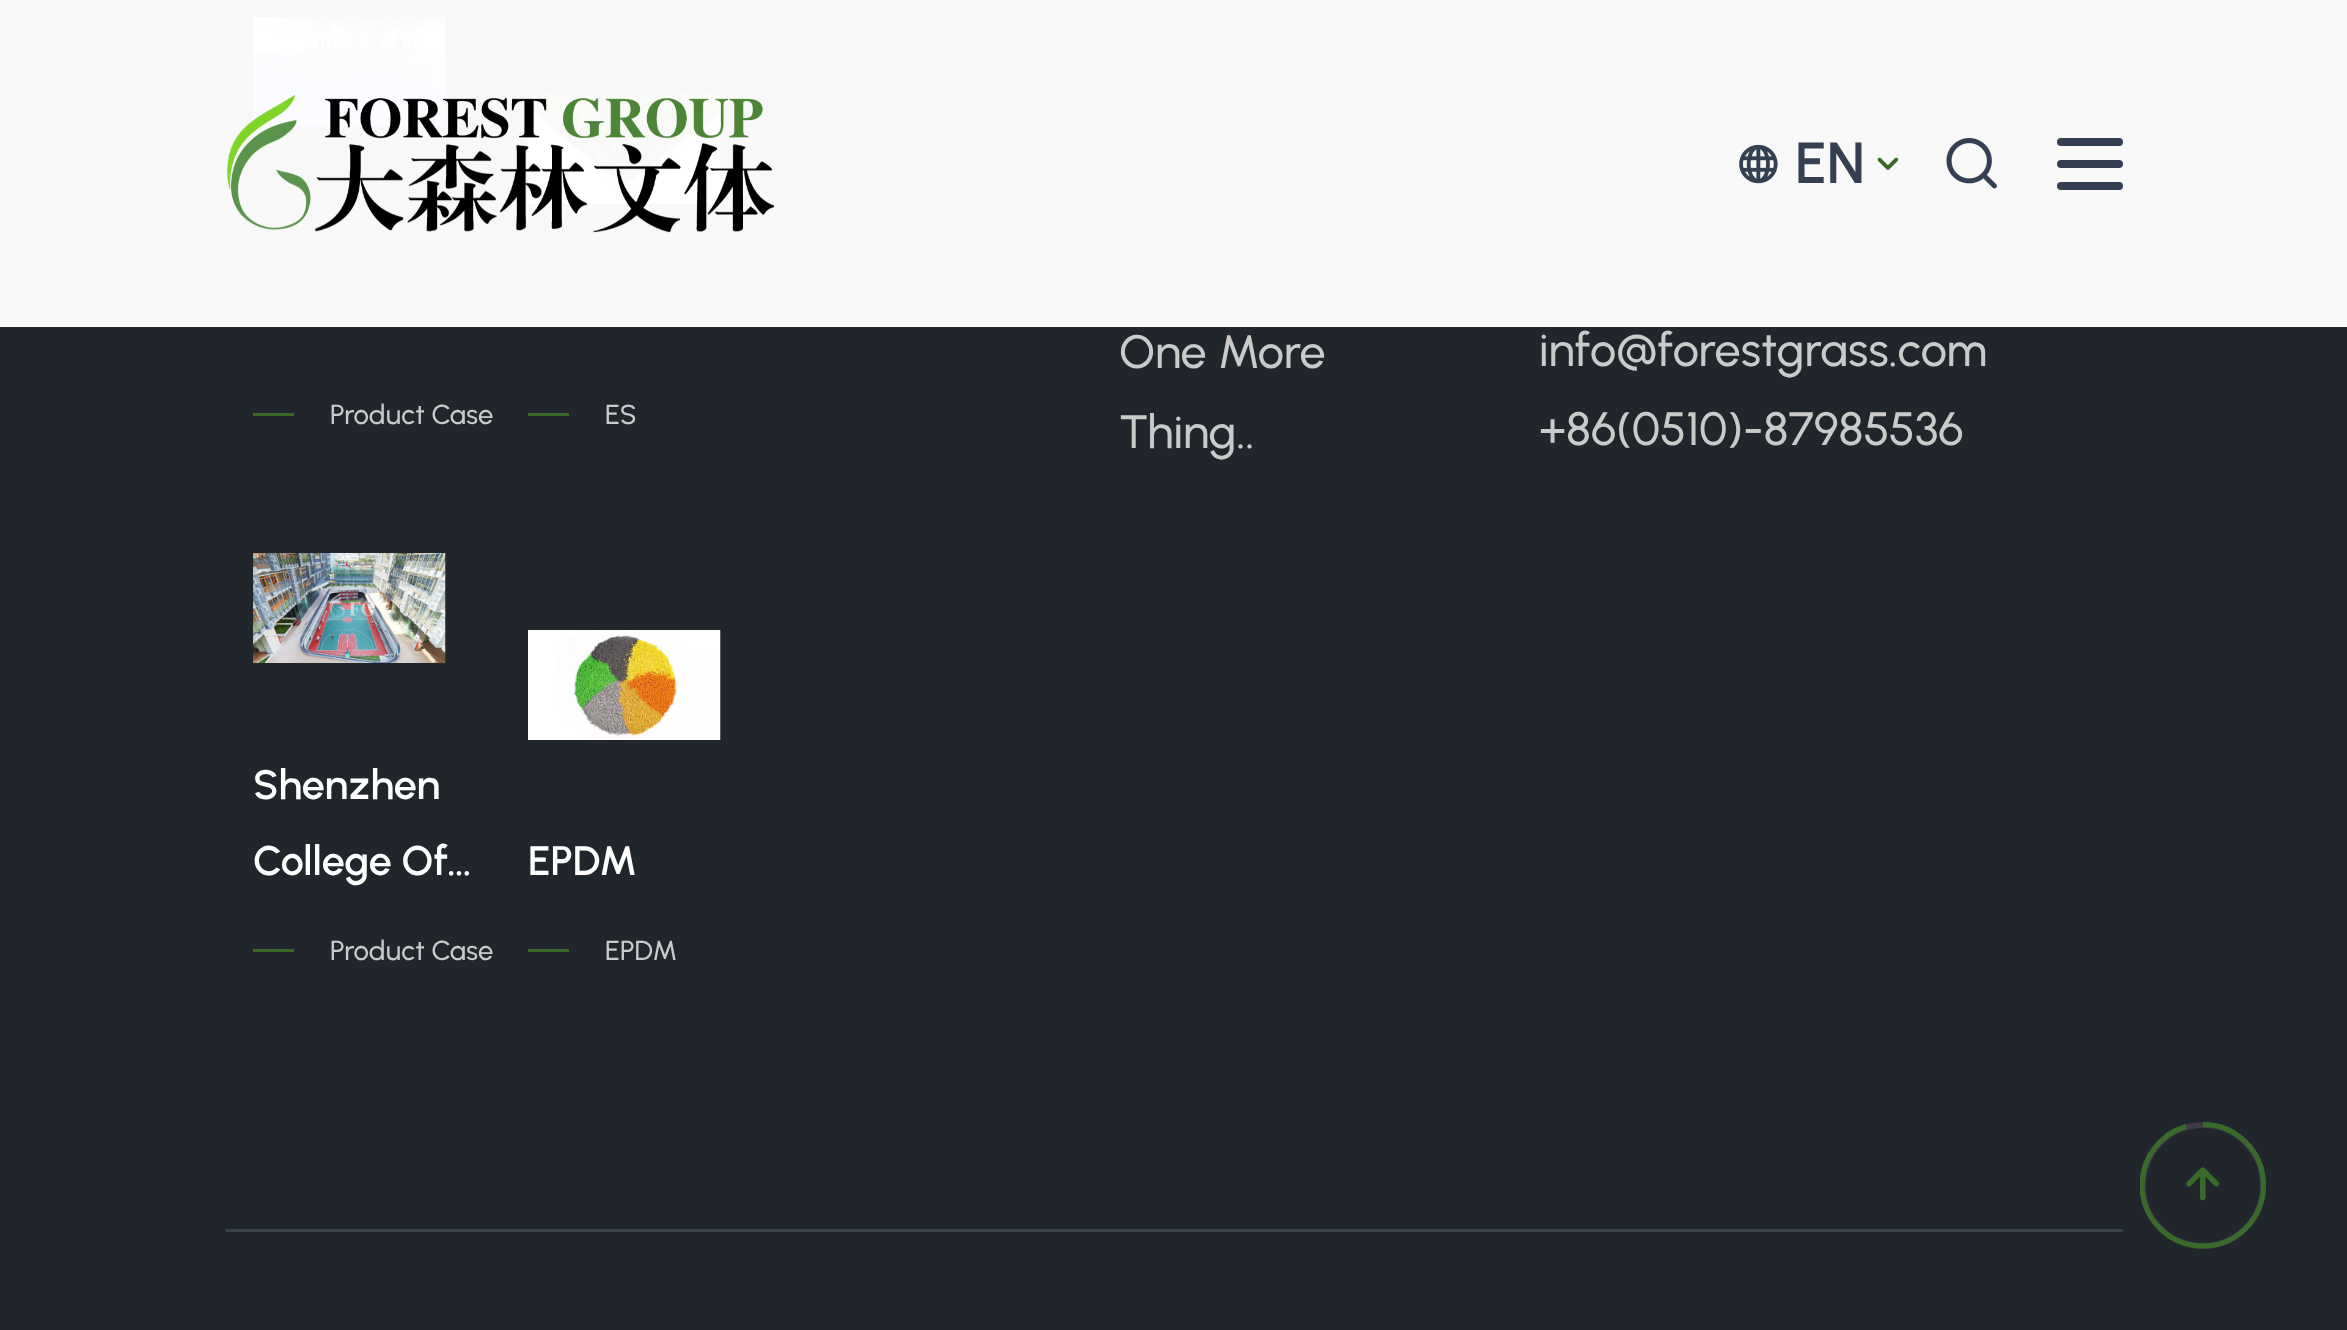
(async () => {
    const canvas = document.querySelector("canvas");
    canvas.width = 2347;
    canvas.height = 1330;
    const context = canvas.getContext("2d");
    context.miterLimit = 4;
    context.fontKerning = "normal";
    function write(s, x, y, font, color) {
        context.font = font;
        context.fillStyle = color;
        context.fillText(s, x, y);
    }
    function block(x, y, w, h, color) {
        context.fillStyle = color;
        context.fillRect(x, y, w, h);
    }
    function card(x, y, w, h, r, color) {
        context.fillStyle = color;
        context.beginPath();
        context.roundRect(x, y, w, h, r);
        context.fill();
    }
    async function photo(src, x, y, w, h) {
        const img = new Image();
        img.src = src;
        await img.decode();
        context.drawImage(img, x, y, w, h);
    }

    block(0, 0, 2347, 1330, "rgb(33, 38, 44)");
    await photo("media/5.png", 253, 16, 193, 111);
    await photo("media/6.png", 528, 93, 193, 111);
    block(0, 0, 2347, 327, "rgba(255, 255, 255, 0.97)");
    await photo("media/1.png", 227, 94, 548, 139);
    await photo("media/2.png", 1739, 144, 39, 40);
    write("EN", 1795, 183, "600 58px Urbanist", "rgb(52, 63, 82)");
    await photo("media/3.png", 1877, 157, 22, 13);
    await photo("media/4.png", 1946, 138, 51, 51);
    card(2057, 138, 66, 8, 4, "rgb(52, 63, 82)");
    card(2057, 160, 66, 8, 4, "rgb(52, 63, 82)");
    card(2057, 182, 66, 8, 4, "rgb(52, 63, 82)");
    block(253, 413, 41, 3, "rgb(58, 106, 42)");
    write("Product Case", 330, 424, "500 27.5px Urbanist", "rgb(202, 202, 202)");
    block(528, 413, 41, 3, "rgb(58, 106, 42)");
    write("ES", 605, 424, "500 27.5px Urbanist", "rgb(202, 202, 202)");
    await photo("media/7.png", 253, 553, 193, 110);
    write("Shenzhen", 253, 799, "600 41.25px Urbanist", "rgb(255, 255, 255)");
    write("College Of…", 253, 875, "600 41.25px Urbanist", "rgb(255, 255, 255)");
    block(253, 949, 41, 3, "rgb(58, 106, 42)");
    write("Product Case", 330, 960, "500 27.5px Urbanist", "rgb(202, 202, 202)");
    await photo("media/8.png", 528, 630, 193, 110);
    write("EPDM", 528, 875, "600 41.25px Urbanist", "rgb(255, 255, 255)");
    block(528, 949, 41, 3, "rgb(58, 106, 42)");
    write("EPDM", 605, 960, "500 27.5px Urbanist", "rgb(202, 202, 202)");
    write("One More", 1119, 368, "500 46.75px Urbanist", "rgb(202, 202, 202)");
    write("Thing..", 1119, 448, "500 46.75px Urbanist", "rgb(202, 202, 202)");
    write("info@forestgrass.com", 1539, 366, "500 46.75px Urbanist", "rgb(202, 202, 202)");
    write("+86(0510)-87985536", 1539, 445, "500 46.75px Urbanist", "rgb(202, 202, 202)");
    block(226, 1229, 1897, 3, "rgb(59, 65, 75)");
    context.beginPath();
    context.roundRect(2143, 1125, 120, 121, 60);
    context.strokeStyle = "rgb(57, 61, 67)";
    context.lineWidth = 6;
    context.stroke();
    context.save();
    context.beginPath();
    context.rect(2140, 1122, 126, 127);
    context.clip();
    context.beginPath();
    context.moveTo(2203, 1124.5);
    context.bezierCurveTo(2236.5, 1124.5, 2263.5, 1151.5, 2263.5, 1185);
    context.bezierCurveTo(2263.5, 1219, 2236.5, 1246, 2203, 1246);
    context.bezierCurveTo(2169, 1246, 2142, 1219, 2142, 1185);
    context.bezierCurveTo(2142, 1157.5, 2160.5, 1134, 2186, 1126.5);
    context.strokeStyle = "rgb(58, 106, 42)";
    context.lineWidth = 5;
    context.stroke();
    context.restore();
    await photo("media/9.png", 2186, 1167, 34, 34);
})();
